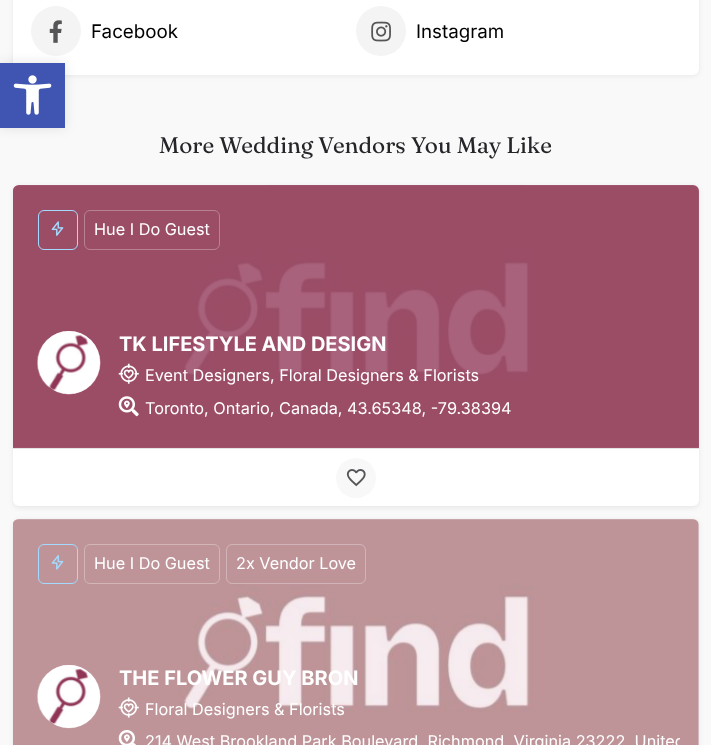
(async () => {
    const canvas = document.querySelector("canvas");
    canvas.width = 711;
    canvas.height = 745;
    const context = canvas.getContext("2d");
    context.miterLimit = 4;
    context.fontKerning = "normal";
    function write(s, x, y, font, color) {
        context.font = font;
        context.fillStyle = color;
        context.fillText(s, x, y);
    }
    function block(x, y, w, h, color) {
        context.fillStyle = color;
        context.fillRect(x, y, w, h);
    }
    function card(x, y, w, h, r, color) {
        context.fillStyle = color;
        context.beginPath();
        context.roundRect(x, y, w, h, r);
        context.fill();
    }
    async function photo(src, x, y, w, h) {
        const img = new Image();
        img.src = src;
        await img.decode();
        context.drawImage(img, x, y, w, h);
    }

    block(0, 0, 711, 745, "rgb(249, 249, 249)");
    context.fillStyle = "rgba(0, 0, 0, 0.07)";
    context.filter = "blur(2.5px)";
    context.beginPath();
    context.roundRect(13, -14, 686, 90, 6);
    context.fill();
    context.filter = "none";
    card(13, -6, 686, 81, 6, "rgb(255, 255, 255)");
    context.fillStyle = "rgb(244, 244, 244)";
    context.beginPath();
    context.arc(56, 31, 25, 0, Math.PI * 2);
    context.fill();
    context.fillStyle = "rgba(0, 0, 0, 0.1)";
    context.filter = "blur(6px)";
    context.beginPath();
    context.rect(0, 63, 65, 65);
    context.fill();
    context.filter = "none";
    block(0, 63, 65, 65, "rgb(64, 84, 178)");
    await photo("media/1.png", 13, 75, 39, 40);
    await photo("media/2.png", 49, 20, 13, 23);
    write("Facebook", 91, 38, "18.75px Inter", "rgb(0, 0, 0)");
    context.fillStyle = "rgb(244, 244, 244)";
    context.beginPath();
    context.arc(381, 31, 25, 0, Math.PI * 2);
    context.fill();
    await photo("media/3.png", 371, 21, 20, 21);
    write("Instagram", 416, 38, "18.75px Inter", "rgb(0, 0, 0)");
    write("More Wedding Vendors You May Like", 159, 153, "22.5px Fraunces", "rgb(36, 36, 41)");
    context.fillStyle = "rgba(0, 0, 0, 0.07)";
    context.filter = "blur(2.5px)";
    context.beginPath();
    context.roundRect(13, 186, 686, 322, 6);
    context.fill();
    context.filter = "none";
    await photo("media/4.png", 13, 185, 686, 263);
    context.fillStyle = "rgba(145, 54, 87, 0.78)";
    context.beginPath();
    context.roundRect(13, 185, 686, 263, [6, 6, 0, 0]);
    context.fill();
    context.beginPath();
    context.roundRect(38.5, 210.5, 39, 39, 5.5);
    context.strokeStyle = "rgb(164, 218, 255)";
    context.stroke();
    await photo("media/5.png", 51, 221, 13, 15);
    context.beginPath();
    context.roundRect(84.5, 210.5, 135, 39, 5.5);
    context.strokeStyle = "rgb(185, 130, 148)";
    context.stroke();
    write("Hue I Do Guest", 94, 235, "16.25px Inter", "rgb(255, 255, 255)");
    card(38, 331, 62, 63, 31, "rgb(255, 255, 255)");
    await photo("media/6.png", 37, 331, 64, 64);
    write("TK LIFESTYLE AND DESIGN", 119, 351, "bold 20px Inter", "rgb(255, 255, 255)");
    await photo("media/7.png", 118, 363, 21, 21);
    write("Event Designers, Floral Designers & Florists", 145, 381, "16.25px Inter", "rgb(255, 255, 255)");
    await photo("media/8.png", 118, 396, 21, 21);
    write("Toronto, Ontario, Canada, 43.65348, -79.38394", 145, 414, "16.25px Inter", "rgb(255, 255, 255)");
    context.beginPath();
    context.roundRect(13, 448, 686, 58, [0, 0, 6, 6]);
    context.fill();
    block(13, 448, 686, 1, "rgb(227, 227, 227)");
    context.fillStyle = "rgb(248, 248, 248)";
    context.beginPath();
    context.arc(356, 478, 20, 0, Math.PI * 2);
    context.fill();
    await photo("media/9.png", 346, 469, 20, 18);
    context.fillStyle = "rgba(0, 0, 0, 0.07)";
    context.filter = "blur(2.5px)";
    context.beginPath();
    context.roundRect(13, 520, 686, 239, 6);
    context.fill();
    context.filter = "none";
    await photo("media/10.png", 13, 519, 686, 226);
    context.fillStyle = "rgba(172, 67, 106, 0.1)";
    context.beginPath();
    context.moveTo(19, 519);
    context.lineTo(693, 519);
    context.bezierCurveTo(696.5, 519, 699, 521.5, 699, 525);
    context.lineTo(699, 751);
    context.lineTo(13, 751);
    context.lineTo(13, 525);
    context.bezierCurveTo(13, 521.5, 15.5, 519, 19, 519);
    context.closePath();
    context.fill();
    context.beginPath();
    context.roundRect(38.5, 544.5, 39, 39, 5.5);
    context.strokeStyle = "rgb(164, 218, 255)";
    context.stroke();
    await photo("media/11.png", 51, 555, 13, 15);
    context.beginPath();
    context.roundRect(84.5, 544.5, 135, 39, 5.5);
    context.strokeStyle = "rgb(209, 181, 183)";
    context.stroke();
    write("Hue I Do Guest", 94, 569, "16.25px Inter", "rgb(255, 255, 255)");
    context.beginPath();
    context.roundRect(226.5, 544.5, 139, 39, 5.5);
    context.strokeStyle = "rgba(255, 255, 255, 0.3)";
    context.stroke();
    write("2x Vendor Love", 236, 569, "16.25px Inter", "rgb(255, 255, 255)");
    card(38, 665, 62, 63, 31, "rgb(255, 255, 255)");
    await photo("media/12.png", 37, 665, 64, 64);
    write("THE FLOWER GUY BRON", 119, 685, "bold 20px Inter", "rgb(255, 255, 255)");
    await photo("media/13.png", 118, 697, 21, 21);
    write("Floral Designers & Florists", 145, 715, "16.25px Inter", "rgb(255, 255, 255)");
    await photo("media/14.png", 118, 730, 18, 15);
    context.save();
    context.beginPath();
    context.rect(38, 665, 642, 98);
    context.clip();
    write("214 West Brookland Park Boulevard, Richmond, Virginia 23222, United", 145, 747, "16.25px Inter", "rgb(255, 255, 255)");
    context.restore();
})();
